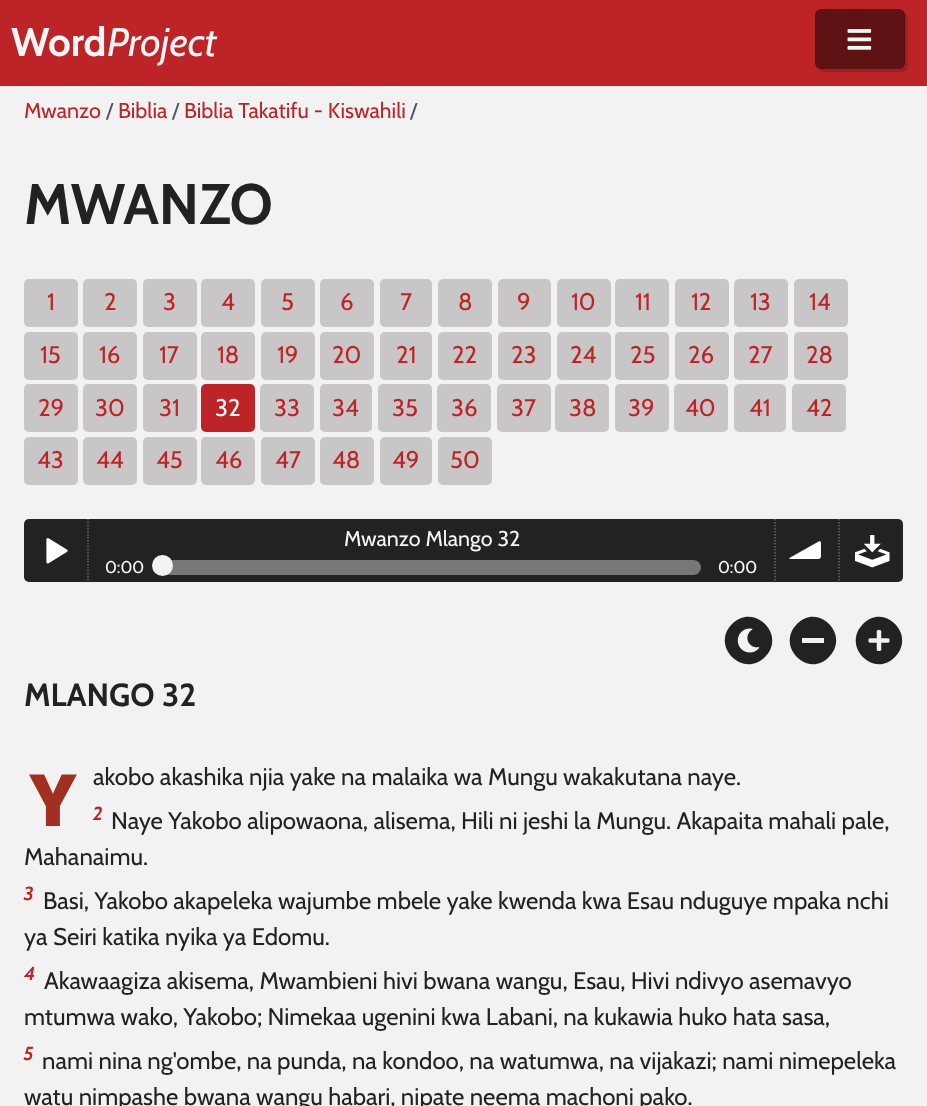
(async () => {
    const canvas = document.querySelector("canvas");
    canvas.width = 927;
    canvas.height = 1106;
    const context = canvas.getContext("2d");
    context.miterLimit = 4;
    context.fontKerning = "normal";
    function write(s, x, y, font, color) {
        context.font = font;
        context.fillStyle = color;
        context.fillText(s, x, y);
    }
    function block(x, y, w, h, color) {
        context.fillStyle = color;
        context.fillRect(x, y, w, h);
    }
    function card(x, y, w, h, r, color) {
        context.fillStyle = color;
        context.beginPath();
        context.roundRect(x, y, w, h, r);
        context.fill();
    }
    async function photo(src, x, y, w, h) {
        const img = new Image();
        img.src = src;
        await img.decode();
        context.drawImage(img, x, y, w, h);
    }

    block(0, 0, 927, 1106, "rgb(242, 242, 242)");
    block(0, 0, 927, 86, "rgb(189, 36, 39)");
    write("Word", 11, 56, "bold 40px Cabin", "rgb(246, 246, 246)");
    write("Project", 107, 56, "italic 40px Cabin", "rgb(246, 246, 246)");
    context.fillStyle = "rgb(161, 31, 33)";
    context.beginPath();
    context.moveTo(819, 69);
    context.bezierCurveTo(820, 71, 822, 72, 824, 72);
    context.lineTo(902, 72);
    context.bezierCurveTo(905, 72, 908, 69, 908, 66);
    context.lineTo(908, 18);
    context.bezierCurveTo(908, 15, 906, 13, 904, 12);
    context.bezierCurveTo(905, 15, 904, 21, 904, 23);
    context.lineTo(904, 39);
    context.bezierCurveTo(904, 75, 910, 69, 872, 69);
    context.closePath();
    context.fill();
    card(815, 9, 90, 60, 6, "rgba(0, 0, 0, 0.5)");
    await photo("media/1.png", 847, 29, 25, 21);
    write("Mwanzo", 24, 118, "21.6px Cabin", "rgb(189, 36, 39)");
    write("/", 106, 118, "21.6px Cabin", "rgb(85, 85, 85)");
    write("Biblia", 118, 118, "21.6px Cabin", "rgb(189, 36, 39)");
    write("/", 172, 118, "21.6px Cabin", "rgb(85, 85, 85)");
    write("Biblia Takatifu - Kiswahili", 184, 118, "21.6px Cabin", "rgb(189, 36, 39)");
    write("/", 410, 118, "21.6px Cabin", "rgb(85, 85, 85)");
    write("MWANZO", 24, 224, "bold 57px Cabin", "rgb(34, 34, 34)");
    card(24, 279, 54, 48, 5, "rgb(200, 198, 198)");
    write("1", 47, 310, "24px Cabin", "rgb(189, 36, 39)");
    card(83, 279, 54, 48, 5, "rgb(200, 198, 198)");
    write("2", 104, 310, "24px Cabin", "rgb(189, 36, 39)");
    card(143, 279, 54, 48, 5, "rgb(200, 198, 198)");
    write("3", 163, 310, "24px Cabin", "rgb(189, 36, 39)");
    card(201, 279, 54, 48, 5, "rgb(200, 198, 198)");
    write("4", 221, 310, "24px Cabin", "rgb(189, 36, 39)");
    card(261, 279, 54, 48, 5, "rgb(200, 198, 198)");
    write("5", 281, 310, "24px Cabin", "rgb(189, 36, 39)");
    card(320, 279, 54, 48, 5, "rgb(200, 198, 198)");
    write("6", 340, 310, "24px Cabin", "rgb(189, 36, 39)");
    card(380, 279, 52, 48, 5, "rgb(200, 198, 198)");
    write("7", 400, 310, "24px Cabin", "rgb(189, 36, 39)");
    card(438, 279, 54, 48, 5, "rgb(200, 198, 198)");
    write("8", 458, 310, "24px Cabin", "rgb(189, 36, 39)");
    card(498, 279, 53, 48, 5, "rgb(200, 198, 198)");
    write("9", 517, 310, "24px Cabin", "rgb(189, 36, 39)");
    card(557, 279, 54, 48, 5, "rgb(200, 198, 198)");
    write("10", 571, 310, "24px Cabin", "rgb(189, 36, 39)");
    card(615, 279, 54, 48, 5, "rgb(200, 198, 198)");
    write("11", 635, 310, "24px Cabin", "rgb(189, 36, 39)");
    card(675, 279, 54, 48, 5, "rgb(200, 198, 198)");
    write("12", 691, 310, "24px Cabin", "rgb(189, 36, 39)");
    card(734, 279, 54, 48, 5, "rgb(200, 198, 198)");
    write("13", 750, 310, "24px Cabin", "rgb(189, 36, 39)");
    card(794, 279, 54, 48, 5, "rgb(200, 198, 198)");
    write("14", 809, 310, "24px Cabin", "rgb(189, 36, 39)");
    card(24, 332, 54, 48, 5, "rgb(200, 198, 198)");
    write("15", 40, 363, "24px Cabin", "rgb(189, 36, 39)");
    card(83, 332, 54, 48, 5, "rgb(200, 198, 198)");
    write("16", 99, 363, "24px Cabin", "rgb(189, 36, 39)");
    card(143, 332, 54, 48, 5, "rgb(200, 198, 198)");
    write("17", 159, 363, "24px Cabin", "rgb(189, 36, 39)");
    card(201, 332, 54, 48, 5, "rgb(200, 198, 198)");
    write("18", 217, 363, "24px Cabin", "rgb(189, 36, 39)");
    card(261, 332, 54, 48, 5, "rgb(200, 198, 198)");
    write("19", 277, 363, "24px Cabin", "rgb(189, 36, 39)");
    card(320, 332, 54, 48, 5, "rgb(200, 198, 198)");
    write("20", 332, 363, "24px Cabin", "rgb(189, 36, 39)");
    card(380, 332, 52, 48, 5, "rgb(200, 198, 198)");
    write("21", 396, 363, "24px Cabin", "rgb(189, 36, 39)");
    card(438, 332, 54, 48, 5, "rgb(200, 198, 198)");
    write("22", 452, 363, "24px Cabin", "rgb(189, 36, 39)");
    card(498, 332, 53, 48, 5, "rgb(200, 198, 198)");
    write("23", 511, 363, "24px Cabin", "rgb(189, 36, 39)");
    card(557, 332, 54, 48, 5, "rgb(200, 198, 198)");
    write("24", 570, 363, "24px Cabin", "rgb(189, 36, 39)");
    card(615, 332, 54, 48, 5, "rgb(200, 198, 198)");
    write("25", 630, 363, "24px Cabin", "rgb(189, 36, 39)");
    card(675, 332, 54, 48, 5, "rgb(200, 198, 198)");
    write("26", 688, 363, "24px Cabin", "rgb(189, 36, 39)");
    card(734, 332, 54, 48, 5, "rgb(200, 198, 198)");
    write("27", 748, 363, "24px Cabin", "rgb(189, 36, 39)");
    card(794, 332, 54, 48, 5, "rgb(200, 198, 198)");
    write("28", 806, 363, "24px Cabin", "rgb(189, 36, 39)");
    card(24, 384, 54, 48, 5, "rgb(200, 198, 198)");
    write("29", 38, 416, "24px Cabin", "rgb(189, 36, 39)");
    card(83, 384, 54, 48, 5, "rgb(200, 198, 198)");
    write("30", 95, 416, "24px Cabin", "rgb(189, 36, 39)");
    card(143, 384, 54, 48, 5, "rgb(200, 198, 198)");
    write("31", 159, 416, "24px Cabin", "rgb(189, 36, 39)");
    card(201, 384, 54, 48, 5, "rgb(189, 36, 39)");
    write("32", 215, 416, "24px Cabin", "rgb(246, 246, 246)");
    card(260, 384, 54, 48, 5, "rgb(200, 198, 198)");
    write("33", 274, 416, "24px Cabin", "rgb(189, 36, 39)");
    card(320, 384, 52, 48, 5, "rgb(200, 198, 198)");
    write("34", 332, 416, "24px Cabin", "rgb(189, 36, 39)");
    card(378, 384, 54, 48, 5, "rgb(200, 198, 198)");
    write("35", 392, 416, "24px Cabin", "rgb(189, 36, 39)");
    card(437, 384, 54, 48, 5, "rgb(200, 198, 198)");
    write("36", 451, 416, "24px Cabin", "rgb(189, 36, 39)");
    card(497, 384, 54, 48, 5, "rgb(200, 198, 198)");
    write("37", 511, 416, "24px Cabin", "rgb(189, 36, 39)");
    card(555, 384, 54, 48, 5, "rgb(200, 198, 198)");
    write("38", 569, 416, "24px Cabin", "rgb(189, 36, 39)");
    card(615, 384, 54, 48, 5, "rgb(200, 198, 198)");
    write("39", 628, 416, "24px Cabin", "rgb(189, 36, 39)");
    card(674, 384, 54, 48, 5, "rgb(200, 198, 198)");
    write("40", 685, 416, "24px Cabin", "rgb(189, 36, 39)");
    card(734, 384, 52, 48, 5, "rgb(200, 198, 198)");
    write("41", 749, 416, "24px Cabin", "rgb(189, 36, 39)");
    card(792, 384, 54, 48, 5, "rgb(200, 198, 198)");
    write("42", 806, 416, "24px Cabin", "rgb(189, 36, 39)");
    card(24, 437, 54, 48, 5, "rgb(200, 198, 198)");
    write("43", 37, 468, "24px Cabin", "rgb(189, 36, 39)");
    card(83, 437, 54, 48, 5, "rgb(200, 198, 198)");
    write("44", 96, 468, "24px Cabin", "rgb(189, 36, 39)");
    card(143, 437, 54, 48, 5, "rgb(200, 198, 198)");
    write("45", 156, 468, "24px Cabin", "rgb(189, 36, 39)");
    card(201, 437, 54, 48, 5, "rgb(200, 198, 198)");
    write("46", 215, 468, "24px Cabin", "rgb(189, 36, 39)");
    card(261, 437, 54, 48, 5, "rgb(200, 198, 198)");
    write("47", 275, 468, "24px Cabin", "rgb(189, 36, 39)");
    card(320, 437, 54, 48, 5, "rgb(200, 198, 198)");
    write("48", 332, 468, "24px Cabin", "rgb(189, 36, 39)");
    card(380, 437, 52, 48, 5, "rgb(200, 198, 198)");
    write("49", 392, 468, "24px Cabin", "rgb(189, 36, 39)");
    card(438, 437, 54, 48, 5, "rgb(200, 198, 198)");
    write("50", 450, 468, "24px Cabin", "rgb(189, 36, 39)");
    card(24, 519, 879, 63, 5, "rgb(34, 34, 34)");
    context.beginPath();
    context.moveTo(88, 519);
    context.lineTo(88, 582);
    context.strokeStyle = "rgb(102, 102, 102)";
    context.lineWidth = 1.5;
    context.setLineDash([1.5, 1.5]);
    context.stroke();
    await photo("media/2.png", 46, 538, 22, 26);
    context.beginPath();
    context.moveTo(775, 519);
    context.lineTo(775, 582);
    context.stroke();
    write("Mwanzo Mlango 32", 344, 546, "21.5px Cabin", "rgb(246, 246, 246)");
    write("0:00", 105, 573, "17px Cabin", "rgb(246, 246, 246)");
    card(162, 560, 539, 15, 7.5, "rgb(119, 119, 119)");
    context.fillStyle = "rgb(242, 242, 242)";
    context.beginPath();
    context.arc(162.5, 565.5, 10.5, 0, Math.PI * 2);
    context.fill();
    write("0:00", 718, 573, "17px Cabin", "rgb(246, 246, 246)");
    context.beginPath();
    context.moveTo(839, 519);
    context.lineTo(839, 582);
    context.stroke();
    await photo("media/3.png", 789, 541, 32, 18);
    await photo("media/4.png", 789, 541, 32, 18);
    await photo("media/5.png", 855, 535, 35, 33);
    context.fillStyle = "rgb(34, 34, 34)";
    context.beginPath();
    context.moveTo(732, 624);
    context.bezierCurveTo(754, 602, 787, 635, 765, 657);
    context.bezierCurveTo(743, 679, 710, 646, 732, 624);
    context.closePath();
    context.fill();
    await photo("media/6.png", 737, 628, 23, 25);
    context.beginPath();
    context.moveTo(797, 624);
    context.bezierCurveTo(818, 602, 851, 635, 829, 657);
    context.bezierCurveTo(808, 679, 775, 646, 797, 624);
    context.closePath();
    context.fill();
    block(802, 638, 22, 5, "rgb(242, 242, 242)");
    context.fillStyle = "rgb(34, 34, 34)";
    context.beginPath();
    context.moveTo(863, 624);
    context.bezierCurveTo(884, 602, 917, 635, 895, 657);
    context.bezierCurveTo(874, 679, 841, 646, 863, 624);
    context.closePath();
    context.fill();
    await photo("media/7.png", 868, 630, 22, 21);
    write("MLANGO 32", 24, 706, "bold 32px Cabin", "rgb(34, 34, 34)");
    write("Y", 29, 826, "900 72px Noto Sans", "rgb(162, 48, 33)");
    write("akobo akashika njia yake na malaika wa Mungu wakakutana naye.", 93, 785, "24px Cabin", "rgb(34, 34, 34)");
    write("2", 93, 820, "italic bold 19px Cabin", "rgb(189, 36, 39)");
    write("Naye Yakobo alipowaona, alisema, Hili ni jeshi la Mungu. Akapaita mahali pale,", 111, 829, "24px Cabin", "rgb(34, 34, 34)");
    write("Mahanaimu.", 24, 865, "24px Cabin", "rgb(34, 34, 34)");
    write("3", 24, 900, "italic bold 19px Cabin", "rgb(189, 36, 39)");
    write("Basi, Yakobo akapeleka wajumbe mbele yake kwenda kwa Esau nduguye mpaka nchi", 43, 909, "24px Cabin", "rgb(34, 34, 34)");
    write("ya Seiri katika nyika ya Edomu.", 24, 945, "24px Cabin", "rgb(34, 34, 34)");
    write("4", 24, 980, "italic bold 19px Cabin", "rgb(189, 36, 39)");
    write("Akawaagiza akisema, Mwambieni hivi bwana wangu, Esau, Hivi ndivyo asemavyo", 44, 989, "24px Cabin", "rgb(34, 34, 34)");
    write("mtumwa wako, Yakobo; Nimekaa ugenini kwa Labani, na kukawia huko hata sasa,", 24, 1025, "24px Cabin", "rgb(34, 34, 34)");
    write("5", 24, 1060, "italic bold 19px Cabin", "rgb(189, 36, 39)");
    write("nami nina ng'ombe, na punda, na kondoo, na watumwa, na vijakazi; nami nimepeleka", 42, 1069, "24px Cabin", "rgb(34, 34, 34)");
    write("watu nimpashe bwana wangu habari, nipate neema machoni pako.", 24, 1105, "24px Cabin", "rgb(34, 34, 34)");
})();
